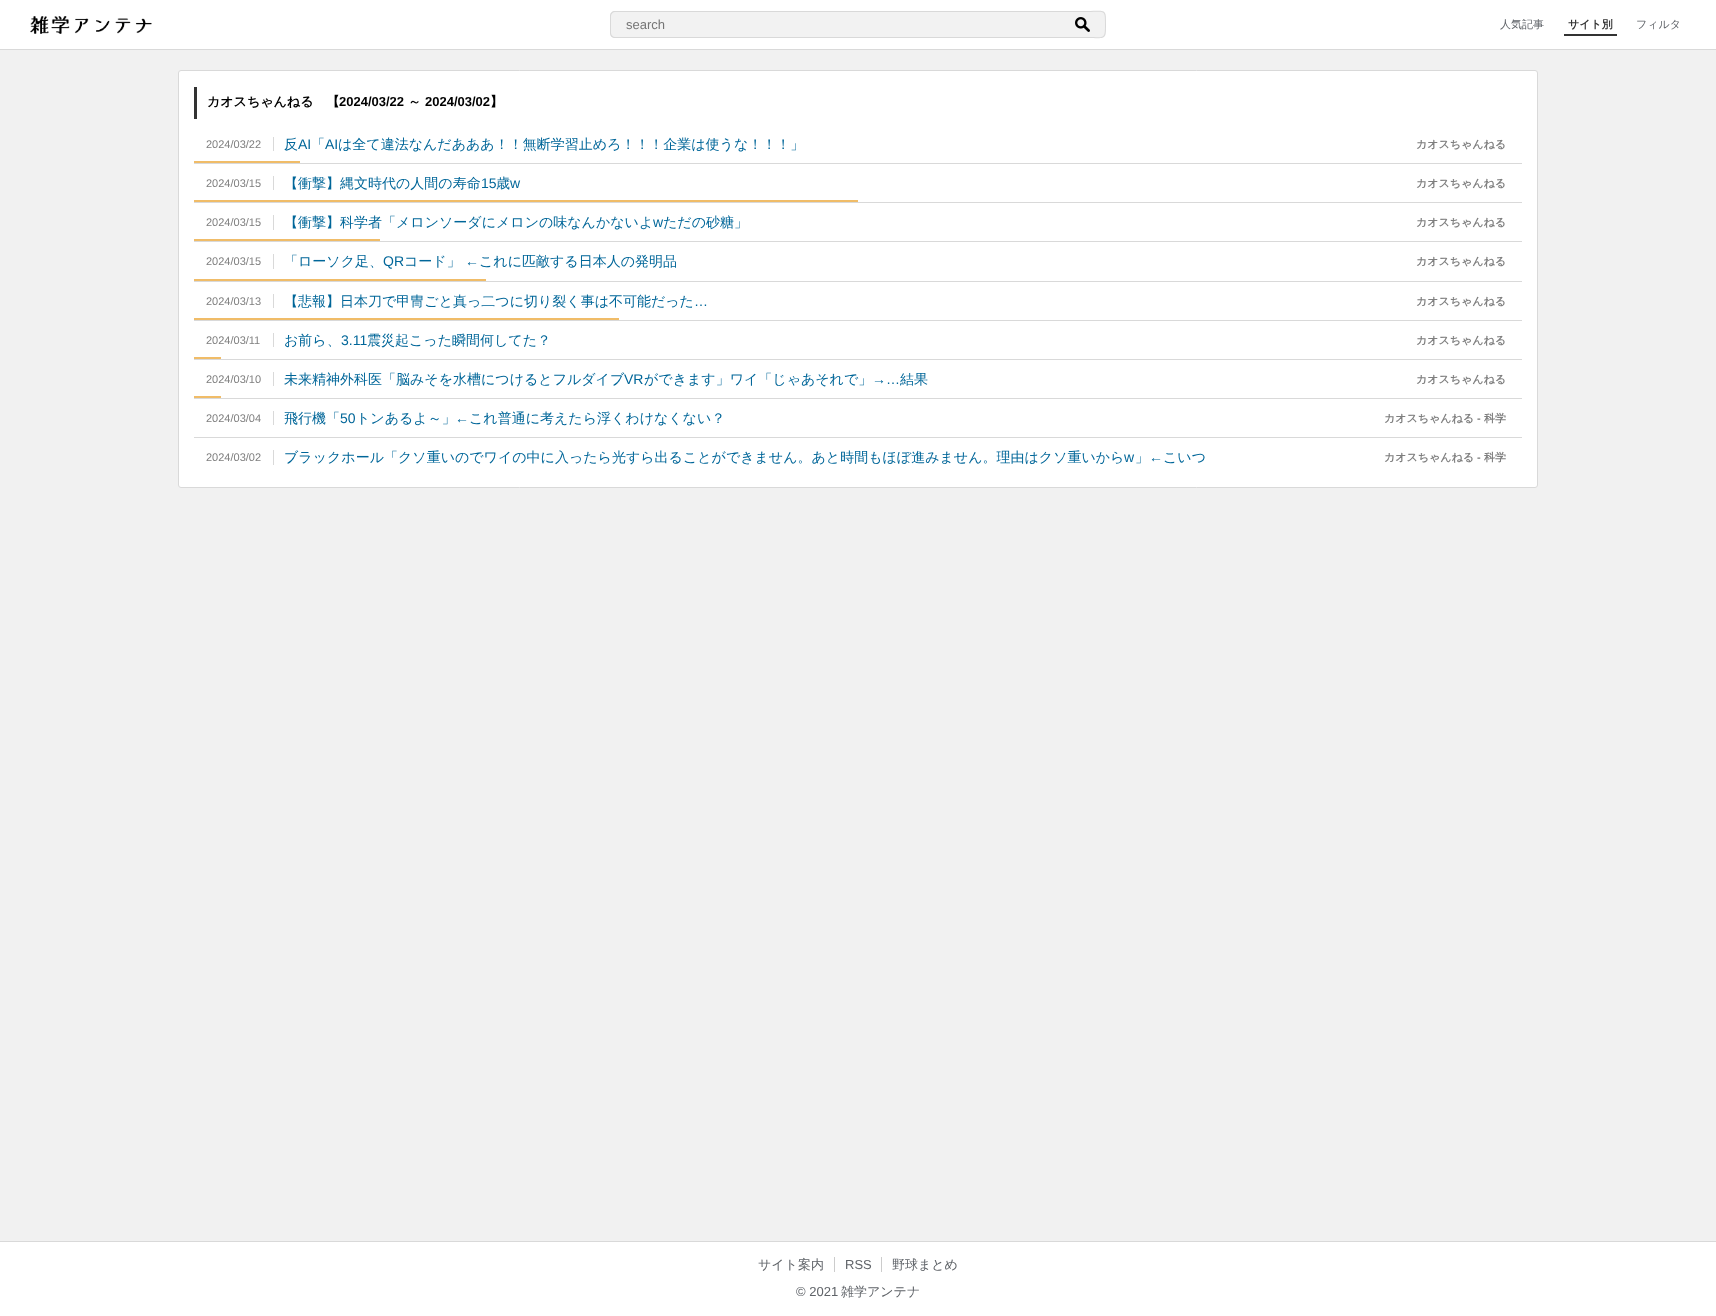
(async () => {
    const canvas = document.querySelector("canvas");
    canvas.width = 1716;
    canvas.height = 1316;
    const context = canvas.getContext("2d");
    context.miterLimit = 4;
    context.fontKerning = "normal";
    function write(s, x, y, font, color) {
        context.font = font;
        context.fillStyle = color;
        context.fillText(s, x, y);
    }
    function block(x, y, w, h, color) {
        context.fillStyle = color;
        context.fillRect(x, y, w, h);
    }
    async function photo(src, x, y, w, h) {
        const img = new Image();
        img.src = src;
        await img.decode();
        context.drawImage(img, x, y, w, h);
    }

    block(0, 0, 1716, 1316, "rgb(241, 241, 241)");
    block(0, 0, 1716, 49, "rgb(255, 255, 255)");
    await photo("media/1.png", 30, 16, 122, 18);
    block(0, 49, 1716, 1, "rgb(217, 217, 217)");
    context.fillStyle = "rgb(242, 242, 242)";
    context.beginPath();
    context.roundRect(610, 11, 450, 27, [5, 0, 0, 5]);
    context.fill();
    context.fillStyle = "rgb(217, 217, 217)";
    context.beginPath();
    context.moveTo(615, 11);
    context.lineTo(1060, 11);
    context.lineTo(1060, 38);
    context.lineTo(615, 38);
    context.bezierCurveTo(612, 38, 610, 36, 610, 33);
    context.lineTo(610, 16);
    context.bezierCurveTo(610, 13, 612, 11, 615, 11);
    context.closePath();
    context.moveTo(615, 12);
    context.lineTo(1060, 12);
    context.lineTo(1060, 37);
    context.lineTo(615, 37);
    context.bezierCurveTo(613, 37, 611, 35, 611, 33);
    context.lineTo(611, 16);
    context.bezierCurveTo(611, 14, 613, 12, 615, 12);
    context.closePath();
    context.fill("evenodd");
    write("search", 626, 29, "13px Liberation Sans", "rgb(117, 117, 117)");
    context.fillStyle = "rgb(242, 242, 242)";
    context.beginPath();
    context.roundRect(1060, 11, 46, 27, [0, 5, 5, 0]);
    context.fill();
    context.fillStyle = "rgb(217, 217, 217)";
    context.beginPath();
    context.moveTo(1060, 11);
    context.lineTo(1087, 11);
    context.bezierCurveTo(1105, 11, 1106, 8, 1106, 24);
    context.bezierCurveTo(1106, 41, 1105, 38, 1087, 38);
    context.lineTo(1060, 38);
    context.closePath();
    context.moveTo(1060, 12);
    context.lineTo(1087, 12);
    context.bezierCurveTo(1105, 12, 1105, 9, 1105, 24);
    context.bezierCurveTo(1105, 40, 1105, 37, 1087, 37);
    context.lineTo(1060, 37);
    context.closePath();
    context.fill("evenodd");
    await photo("media/2.png", 1075, 17, 15, 15);
    write("人気記事", 1500, 28, "500 11px WenQuanYi Zen Hei", "rgb(95, 99, 104)");
    block(1564, 34, 53, 2, "rgb(51, 51, 51)");
    write("サイト別", 1568, 28, "bold 11px WenQuanYi Zen Hei", "rgb(51, 51, 51)");
    write("フィルタ", 1636, 28, "500 11px WenQuanYi Zen Hei", "rgb(95, 99, 104)");
    context.fillStyle = "rgb(255, 255, 255)";
    context.beginPath();
    context.roundRect(178.5, 70.5, 1359, 417, 2.5);
    context.fill();
    context.strokeStyle = "rgb(217, 217, 217)";
    context.stroke();
    block(194, 87, 3, 32, "rgb(51, 51, 51)");
    write("カオスちゃんねる　【", 207, 106, "bold 13px WenQuanYi Zen Hei", "rgb(0, 0, 0)");
    write("2024/03/22", 339, 106, "bold 13px Liberation Sans", "rgb(0, 0, 0)");
    write("～", 408, 106, "bold 13px WenQuanYi Zen Hei", "rgb(0, 0, 0)");
    write("2024/03/02", 425, 106, "bold 13px Liberation Sans", "rgb(0, 0, 0)");
    write("】", 490, 106, "bold 13px WenQuanYi Zen Hei", "rgb(0, 0, 0)");
    block(194, 163, 1328, 1, "rgb(217, 217, 217)");
    block(273, 137, 1, 14, "rgb(217, 217, 217)");
    write("2024/03/22", 206, 148, "11px Liberation Sans", "rgb(127, 127, 127)");
    write("反", 284, 149, "500 14px WenQuanYi Zen Hei", "rgb(0, 102, 153)");
    write("AI", 298, 149, "14px Liberation Sans", "rgb(0, 102, 153)");
    write("「", 311, 149, "500 14px WenQuanYi Zen Hei", "rgb(0, 102, 153)");
    write("AI", 325, 149, "14px Liberation Sans", "rgb(0, 102, 153)");
    write("は全て違法なんだあああ！！無断学習止めろ！！！企業は使うな！！！」", 338, 149, "500 14px WenQuanYi Zen Hei", "rgb(0, 102, 153)");
    write("カオスちゃんねる", 1416, 148, "bold 11px WenQuanYi Zen Hei", "rgb(127, 127, 127)");
    block(194, 161, 106, 2, "rgb(240, 188, 104)");
    block(194, 202, 1328, 1, "rgb(217, 217, 217)");
    block(273, 176, 1, 14, "rgb(217, 217, 217)");
    write("2024/03/15", 206, 187, "11px Liberation Sans", "rgb(127, 127, 127)");
    write("【衝撃】縄文時代の人間の寿命", 284, 188, "500 14px WenQuanYi Zen Hei", "rgb(0, 102, 153)");
    write("15", 481, 188, "14px Liberation Sans", "rgb(0, 102, 153)");
    write("歳", 496, 188, "500 14px WenQuanYi Zen Hei", "rgb(0, 102, 153)");
    write("w", 510, 188, "14px Liberation Sans", "rgb(0, 102, 153)");
    write("カオスちゃんねる", 1416, 187, "bold 11px WenQuanYi Zen Hei", "rgb(127, 127, 127)");
    block(194, 200, 664, 2, "rgb(240, 188, 104)");
    block(194, 241, 1328, 1, "rgb(217, 217, 217)");
    block(273, 215, 1, 15, "rgb(217, 217, 217)");
    write("2024/03/15", 206, 226, "11px Liberation Sans", "rgb(127, 127, 127)");
    write("【衝撃】科学者「メロンソーダにメロンの味なんかないよ", 284, 227, "500 14px WenQuanYi Zen Hei", "rgb(0, 102, 153)");
    write("w", 653, 227, "14px Liberation Sans", "rgb(0, 102, 153)");
    write("ただの砂糖」", 663, 227, "500 14px WenQuanYi Zen Hei", "rgb(0, 102, 153)");
    write("カオスちゃんねる", 1416, 226, "bold 11px WenQuanYi Zen Hei", "rgb(127, 127, 127)");
    block(194, 239, 186, 2, "rgb(240, 188, 104)");
    block(194, 281, 1328, 1, "rgb(217, 217, 217)");
    block(273, 254, 1, 15, "rgb(217, 217, 217)");
    write("2024/03/15", 206, 265, "11px Liberation Sans", "rgb(127, 127, 127)");
    write("「ローソク足、", 284, 266, "500 14px WenQuanYi Zen Hei", "rgb(0, 102, 153)");
    write("QR", 383, 266, "14px Liberation Sans", "rgb(0, 102, 153)");
    write("コード」", 404, 266, "500 14px WenQuanYi Zen Hei", "rgb(0, 102, 153)");
    write("←", 465, 266, "14px Liberation Sans", "rgb(0, 102, 153)");
    write("これに匹敵する日本人の発明品", 479, 266, "500 14px WenQuanYi Zen Hei", "rgb(0, 102, 153)");
    write("カオスちゃんねる", 1416, 265, "bold 11px WenQuanYi Zen Hei", "rgb(127, 127, 127)");
    block(194, 279, 292, 2, "rgb(240, 188, 104)");
    block(194, 320, 1328, 1, "rgb(217, 217, 217)");
    block(273, 294, 1, 14, "rgb(217, 217, 217)");
    write("2024/03/13", 206, 305, "11px Liberation Sans", "rgb(127, 127, 127)");
    write("【悲報】日本刀で甲冑ごと真っ二つに切り裂く事は不可能だった", 284, 306, "500 14px WenQuanYi Zen Hei", "rgb(0, 102, 153)");
    write("…", 694, 306, "14px Liberation Sans", "rgb(0, 102, 153)");
    write("カオスちゃんねる", 1416, 305, "bold 11px WenQuanYi Zen Hei", "rgb(127, 127, 127)");
    block(194, 318, 425, 2, "rgb(240, 188, 104)");
    block(194, 359, 1328, 1, "rgb(217, 217, 217)");
    block(273, 333, 1, 14, "rgb(217, 217, 217)");
    write("2024/03/11", 206, 344, "11px Liberation Sans", "rgb(127, 127, 127)");
    write("お前ら、", 284, 345, "500 14px WenQuanYi Zen Hei", "rgb(0, 102, 153)");
    write("3.11", 341, 345, "14px Liberation Sans", "rgb(0, 102, 153)");
    write("震災起こった瞬間何してた？", 367, 345, "500 14px WenQuanYi Zen Hei", "rgb(0, 102, 153)");
    write("カオスちゃんねる", 1416, 344, "bold 11px WenQuanYi Zen Hei", "rgb(127, 127, 127)");
    block(194, 357, 27, 2, "rgb(240, 188, 104)");
    block(194, 398, 1328, 1, "rgb(217, 217, 217)");
    block(273, 372, 1, 14, "rgb(217, 217, 217)");
    write("2024/03/10", 206, 383, "11px Liberation Sans", "rgb(127, 127, 127)");
    write("未来精神外科医「脳みそを水槽につけるとフルダイブ", 284, 384, "500 14px WenQuanYi Zen Hei", "rgb(0, 102, 153)");
    write("VR", 624, 384, "14px Liberation Sans", "rgb(0, 102, 153)");
    write("ができます」ワイ「じゃあそれで」", 644, 384, "500 14px WenQuanYi Zen Hei", "rgb(0, 102, 153)");
    write("→…", 872, 384, "14px Liberation Sans", "rgb(0, 102, 153)");
    write("結果", 900, 384, "500 14px WenQuanYi Zen Hei", "rgb(0, 102, 153)");
    write("カオスちゃんねる", 1416, 383, "bold 11px WenQuanYi Zen Hei", "rgb(127, 127, 127)");
    block(194, 396, 27, 2, "rgb(240, 188, 104)");
    block(194, 437, 1328, 1, "rgb(217, 217, 217)");
    block(273, 411, 1, 14, "rgb(217, 217, 217)");
    write("2024/03/04", 206, 422, "11px Liberation Sans", "rgb(127, 127, 127)");
    write("飛行機「", 284, 423, "500 14px WenQuanYi Zen Hei", "rgb(0, 102, 153)");
    write("50", 340, 423, "14px Liberation Sans", "rgb(0, 102, 153)");
    write("トンあるよ～」", 356, 423, "500 14px WenQuanYi Zen Hei", "rgb(0, 102, 153)");
    write("←", 455, 423, "14px Liberation Sans", "rgb(0, 102, 153)");
    write("これ普通に考えたら浮くわけなくない？", 469, 423, "500 14px WenQuanYi Zen Hei", "rgb(0, 102, 153)");
    write("カオスちゃんねる", 1384, 422, "bold 11px WenQuanYi Zen Hei", "rgb(127, 127, 127)");
    write("-", 1477, 422, "bold 11px Liberation Sans", "rgb(127, 127, 127)");
    write("科学", 1484, 422, "bold 11px WenQuanYi Zen Hei", "rgb(127, 127, 127)");
    block(273, 450, 1, 15, "rgb(217, 217, 217)");
    write("2024/03/02", 206, 461, "11px Liberation Sans", "rgb(127, 127, 127)");
    write("ブラックホール「クソ重いのでワイの中に入ったら光すら出ることができません。あと時間もほぼ進みません。理由はクソ重いから", 284, 462, "500 14px WenQuanYi Zen Hei", "rgb(0, 102, 153)");
    write("w", 1124, 462, "14px Liberation Sans", "rgb(0, 102, 153)");
    write("」", 1135, 462, "500 14px WenQuanYi Zen Hei", "rgb(0, 102, 153)");
    write("←", 1149, 462, "14px Liberation Sans", "rgb(0, 102, 153)");
    write("こいつ", 1163, 462, "500 14px WenQuanYi Zen Hei", "rgb(0, 102, 153)");
    write("カオスちゃんねる", 1384, 461, "bold 11px WenQuanYi Zen Hei", "rgb(127, 127, 127)");
    write("-", 1477, 461, "bold 11px Liberation Sans", "rgb(127, 127, 127)");
    write("科学", 1484, 461, "bold 11px WenQuanYi Zen Hei", "rgb(127, 127, 127)");
    block(0, 1242, 1716, 74, "rgb(255, 255, 255)");
    block(0, 1241, 1716, 1, "rgb(217, 217, 217)");
    write("サイト案内", 758, 1269, "500 13px WenQuanYi Zen Hei", "rgb(95, 99, 104)");
    write("RSS", 845, 1269, "13px Liberation Sans", "rgb(95, 99, 104)");
    block(834, 1257, 1, 15, "rgb(204, 204, 204)");
    write("野球まとめ", 892, 1269, "500 13px WenQuanYi Zen Hei", "rgb(95, 99, 104)");
    block(881, 1257, 1, 15, "rgb(204, 204, 204)");
    write("© 2021", 796, 1296, "13px Liberation Sans", "rgb(95, 99, 104)");
    write("雑学アンテナ", 841, 1296, "500 13px WenQuanYi Zen Hei", "rgb(95, 99, 104)");
})();
